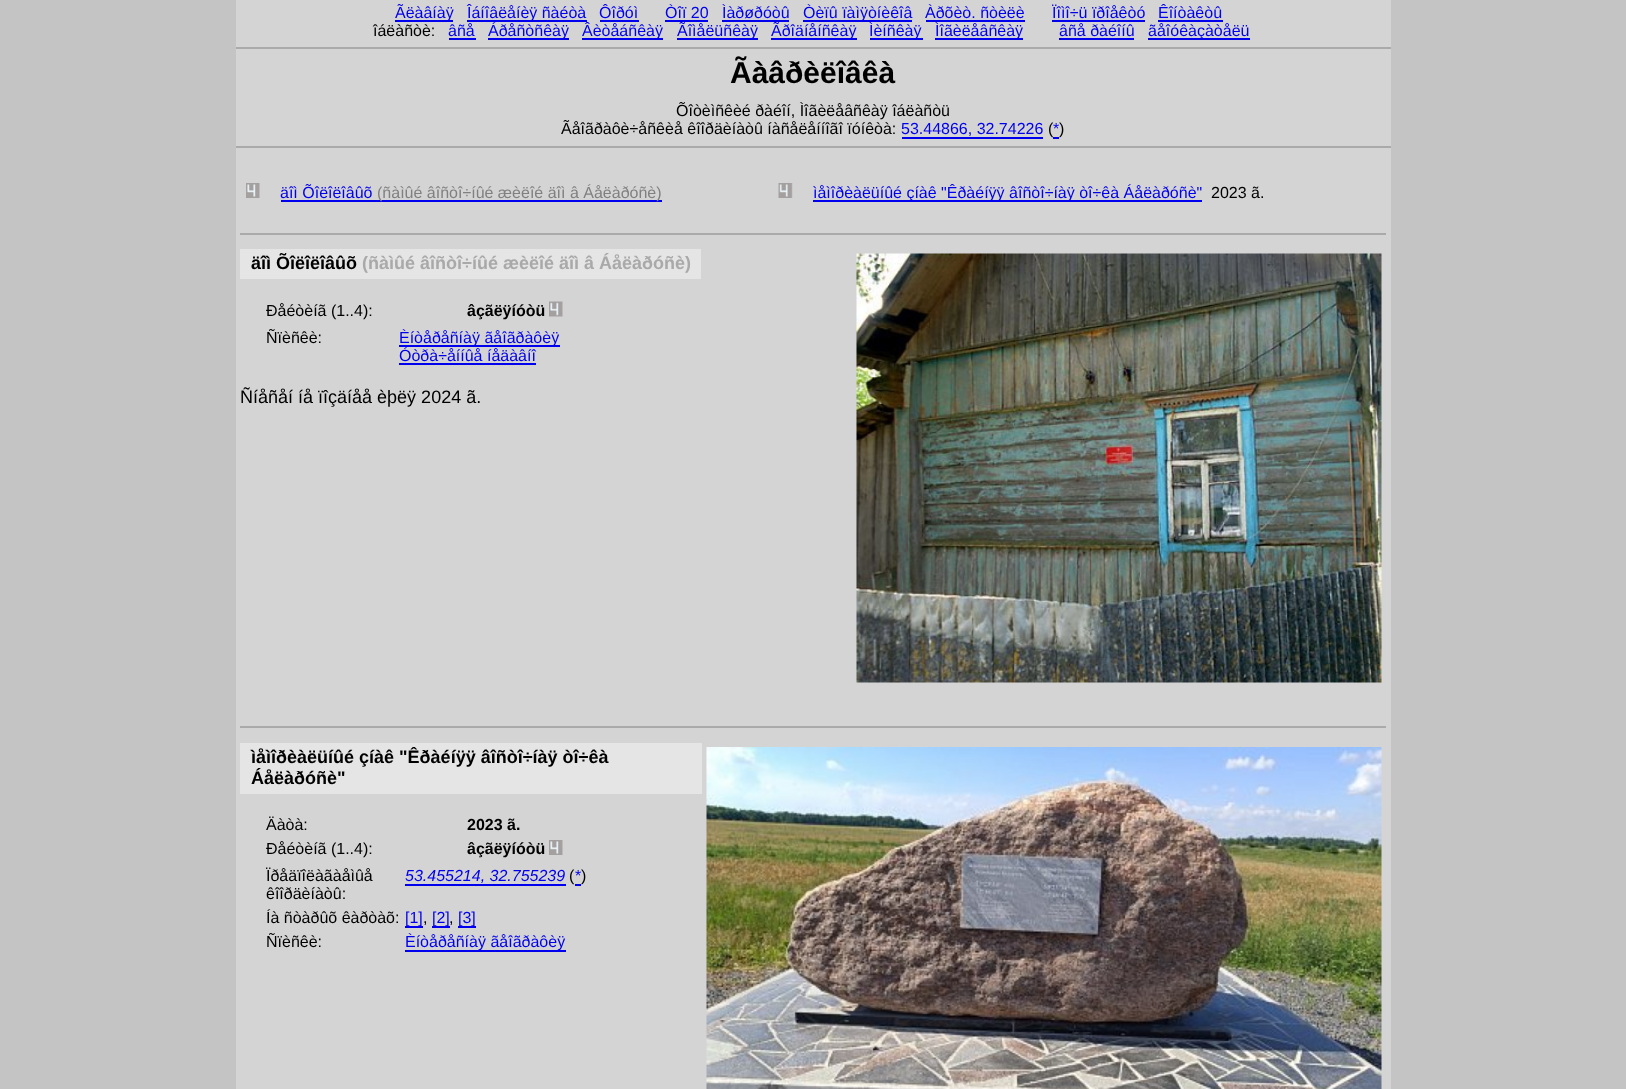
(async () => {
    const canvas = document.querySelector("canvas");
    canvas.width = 1626;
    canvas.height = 1089;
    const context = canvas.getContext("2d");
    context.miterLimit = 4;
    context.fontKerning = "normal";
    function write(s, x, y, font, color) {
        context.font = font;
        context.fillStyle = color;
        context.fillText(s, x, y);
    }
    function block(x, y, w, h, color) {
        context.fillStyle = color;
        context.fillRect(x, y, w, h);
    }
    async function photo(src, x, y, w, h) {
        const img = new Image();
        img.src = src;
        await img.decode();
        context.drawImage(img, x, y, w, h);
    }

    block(0, 0, 1626, 1089, "rgb(196, 196, 196)");
    block(236, 0, 1155, 1089, "rgb(212, 212, 212)");
    block(395, 20, 58, 2, "rgb(0, 0, 238)");
    write("Ãëàâíàÿ", 395, 18, "16px Liberation Sans", "rgb(0, 0, 238)");
    block(467, 20, 120, 2, "rgb(0, 0, 238)");
    write("Îáíîâëåíèÿ ñàéòà", 467, 18, "16px Liberation Sans", "rgb(0, 0, 238)");
    write("Ôîðóì", 599, 18, "16px Liberation Sans", "rgb(0, 0, 238)");
    block(600, 20, 39, 2, "rgb(0, 0, 238)");
    write("Òîï 20", 665, 18, "16px Liberation Sans", "rgb(0, 0, 238)");
    block(665, 20, 43, 2, "rgb(0, 0, 238)");
    write("Ìàðøðóòû", 722, 18, "16px Liberation Sans", "rgb(0, 0, 238)");
    block(722, 20, 67, 2, "rgb(0, 0, 238)");
    block(803, 20, 109, 2, "rgb(0, 0, 238)");
    write("Òèïû ïàìÿòíèêîâ", 803, 18, "16px Liberation Sans", "rgb(0, 0, 238)");
    write("Àðõèò. ñòèëè", 925, 18, "16px Liberation Sans", "rgb(0, 0, 238)");
    block(926, 20, 99, 2, "rgb(0, 0, 238)");
    write("Ïîìî÷ü ïðîåêòó", 1052, 18, "16px Liberation Sans", "rgb(0, 0, 238)");
    block(1052, 20, 93, 2, "rgb(0, 0, 238)");
    write("Êîíòàêòû", 1158, 18, "16px Liberation Sans", "rgb(0, 0, 238)");
    block(1158, 20, 65, 2, "rgb(0, 0, 238)");
    write("îáëàñòè:", 373, 36, "16px Liberation Sans", "rgb(0, 0, 0)");
    write("âñå", 448, 36, "16px Liberation Sans", "rgb(0, 0, 238)");
    block(449, 38, 27, 2, "rgb(0, 0, 238)");
    block(488, 38, 81, 2, "rgb(0, 0, 238)");
    write("Áðåñòñêàÿ", 488, 36, "16px Liberation Sans", "rgb(0, 0, 238)");
    block(582, 38, 81, 2, "rgb(0, 0, 238)");
    write("Âèòåáñêàÿ", 582, 36, "16px Liberation Sans", "rgb(0, 0, 238)");
    block(677, 38, 81, 2, "rgb(0, 0, 238)");
    write("Ãîìåëüñêàÿ", 677, 36, "16px Liberation Sans", "rgb(0, 0, 238)");
    block(771, 38, 86, 2, "rgb(0, 0, 238)");
    write("Ãðîäíåíñêàÿ", 771, 36, "16px Liberation Sans", "rgb(0, 0, 238)");
    block(870, 38, 53, 2, "rgb(0, 0, 238)");
    write("Ìèíñêàÿ", 869, 36, "16px Liberation Sans", "rgb(0, 0, 238)");
    block(935, 38, 88, 2, "rgb(0, 0, 238)");
    write("Ìîãèëåâñêàÿ", 935, 36, "16px Liberation Sans", "rgb(0, 0, 238)");
    write("âñå ðàéîíû", 1059, 36, "16px Liberation Sans", "rgb(0, 0, 238)");
    block(1059, 38, 75, 2, "rgb(0, 0, 238)");
    block(1148, 38, 102, 2, "rgb(0, 0, 238)");
    write("ãåîóêàçàòåëü", 1148, 36, "16px Liberation Sans", "rgb(0, 0, 238)");
    block(236, 47, 1155, 2, "rgb(170, 170, 170)");
    write("Ãàâðèëîâêà", 730, 83, "bold 30px Liberation Sans", "rgb(0, 0, 0)");
    write("Õîòèìñêèé ðàéîí, Ìîãèëåâñêàÿ îáëàñòü", 676, 116, "16px Liberation Sans", "rgb(0, 0, 0)");
    write("Ãåîãðàôè÷åñêèå êîîðäèíàòû íàñåëåííîãî ïóíêòà:", 561, 134, "16px Liberation Sans", "rgb(0, 0, 0)");
    write("53.44866, 32.74226", 901, 134, "16px Liberation Sans", "rgb(0, 0, 238)");
    block(902, 137, 141, 2, "rgb(0, 0, 238)");
    write("(", 1048, 134, "16px Liberation Sans", "rgb(0, 0, 0)");
    write("*", 1053, 134, "16px Liberation Sans", "rgb(0, 0, 238)");
    block(1053, 137, 6, 2, "rgb(0, 0, 238)");
    write(")", 1059, 134, "16px Liberation Sans", "rgb(0, 0, 0)");
    block(236, 146, 1155, 2, "rgb(170, 170, 170)");
    await photo("media/1.png", 246, 183, 14, 15);
    write("äîì Õîëîëîâûõ", 280, 198, "16px Liberation Sans", "rgb(0, 0, 238)");
    block(281, 200, 381, 2, "rgb(0, 0, 238)");
    write("(ñàìûé âîñòî÷íûé æèëîé äîì â Áåëàðóñè)", 377, 198, "16px Liberation Sans", "rgb(128, 128, 128)");
    await photo("media/2.png", 778, 183, 15, 15);
    block(813, 200, 389, 2, "rgb(0, 0, 238)");
    write("ìåìîðèàëüíûé çíàê \"Êðàéíÿÿ âîñòî÷íàÿ òî÷êà Áåëàðóñè\"", 813, 198, "16px Liberation Sans", "rgb(0, 0, 238)");
    write("2023 ã.", 1211, 198, "16px Liberation Sans", "rgb(0, 0, 0)");
    block(240, 233, 1146, 2, "rgb(170, 170, 170)");
    block(240, 249, 461, 30, "rgb(229, 229, 229)");
    write("äîì Õîëîëîâûõ", 251, 269, "bold 18px Liberation Sans", "rgb(0, 0, 0)");
    write("(ñàìûé âîñòî÷íûé æèëîé äîì â Áåëàðóñè)", 362, 269, "bold 18px Liberation Sans", "rgb(169, 169, 169)");
    write("Ðåéòèíã (1..4):", 266, 316, "16px Liberation Sans", "rgb(0, 0, 0)");
    write("âçãëÿíóòü", 467, 316, "bold 16px Liberation Sans", "rgb(0, 0, 0)");
    await photo("media/3.png", 549, 301, 14, 16);
    write("Ñïèñêè:", 266, 343, "16px Liberation Sans", "rgb(0, 0, 0)");
    block(399, 345, 161, 2, "rgb(0, 0, 238)");
    write("Èíòåðåñíàÿ ãåîãðàôèÿ", 399, 343, "16px Liberation Sans", "rgb(0, 0, 238)");
    write("Óòðà÷åííûå íåäàâíî", 399, 361, "16px Liberation Sans", "rgb(0, 0, 238)");
    block(399, 363, 137, 2, "rgb(0, 0, 238)");
    await photo("media/4.png", 856, 253, 526, 430);
    write("Ñíåñåí íå ïîçäíåå èþëÿ 2024 ã.", 240, 403, "18px Liberation Sans", "rgb(0, 0, 0)");
    block(240, 726, 1146, 2, "rgb(170, 170, 170)");
    block(240, 743, 462, 51, "rgb(229, 229, 229)");
    write("ìåìîðèàëüíûé çíàê \"Êðàéíÿÿ âîñòî÷íàÿ òî÷êà", 251, 763, "bold 18px Liberation Sans", "rgb(0, 0, 0)");
    write("Áåëàðóñè\"", 251, 784, "bold 18px Liberation Sans", "rgb(0, 0, 0)");
    write("Äàòà:", 266, 830, "16px Liberation Sans", "rgb(0, 0, 0)");
    write("2023 ã.", 467, 830, "bold 16px Liberation Sans", "rgb(0, 0, 0)");
    write("Ðåéòèíã (1..4):", 266, 854, "16px Liberation Sans", "rgb(0, 0, 0)");
    write("âçãëÿíóòü", 467, 854, "bold 16px Liberation Sans", "rgb(0, 0, 0)");
    await photo("media/1.png", 549, 840, 14, 15);
    write("Ïðåäïîëàãàåìûå", 266, 881, "16px Liberation Sans", "rgb(0, 0, 0)");
    write("êîîðäèíàòû:", 266, 899, "16px Liberation Sans", "rgb(0, 0, 0)");
    write("53.455214, 32.755239", 405, 881, "italic 16px Liberation Sans", "rgb(0, 0, 238)");
    block(405, 884, 161, 2, "rgb(0, 0, 238)");
    write("(", 569, 881, "16px Liberation Sans", "rgb(0, 0, 0)");
    write("*", 575, 881, "16px Liberation Sans", "rgb(0, 0, 238)");
    block(575, 884, 6, 2, "rgb(0, 0, 238)");
    write(")", 581, 881, "16px Liberation Sans", "rgb(0, 0, 0)");
    write("Íà ñòàðûõ êàðòàõ:", 266, 923, "16px Liberation Sans", "rgb(0, 0, 0)");
    block(405, 926, 18, 2, "rgb(0, 0, 238)");
    write("[1]", 405, 923, "16px Liberation Sans", "rgb(0, 0, 238)");
    write(",", 423, 923, "16px Liberation Sans", "rgb(0, 0, 0)");
    block(432, 926, 18, 2, "rgb(0, 0, 238)");
    write("[2]", 432, 923, "16px Liberation Sans", "rgb(0, 0, 238)");
    write(",", 449, 923, "16px Liberation Sans", "rgb(0, 0, 0)");
    block(458, 926, 18, 2, "rgb(0, 0, 238)");
    write("[3]", 458, 923, "16px Liberation Sans", "rgb(0, 0, 238)");
    write("Ñïèñêè:", 266, 947, "16px Liberation Sans", "rgb(0, 0, 0)");
    block(405, 950, 161, 2, "rgb(0, 0, 238)");
    write("Èíòåðåñíàÿ ãåîãðàôèÿ", 405, 947, "16px Liberation Sans", "rgb(0, 0, 238)");
    await photo("media/5.png", 706, 747, 676, 342);
})();
